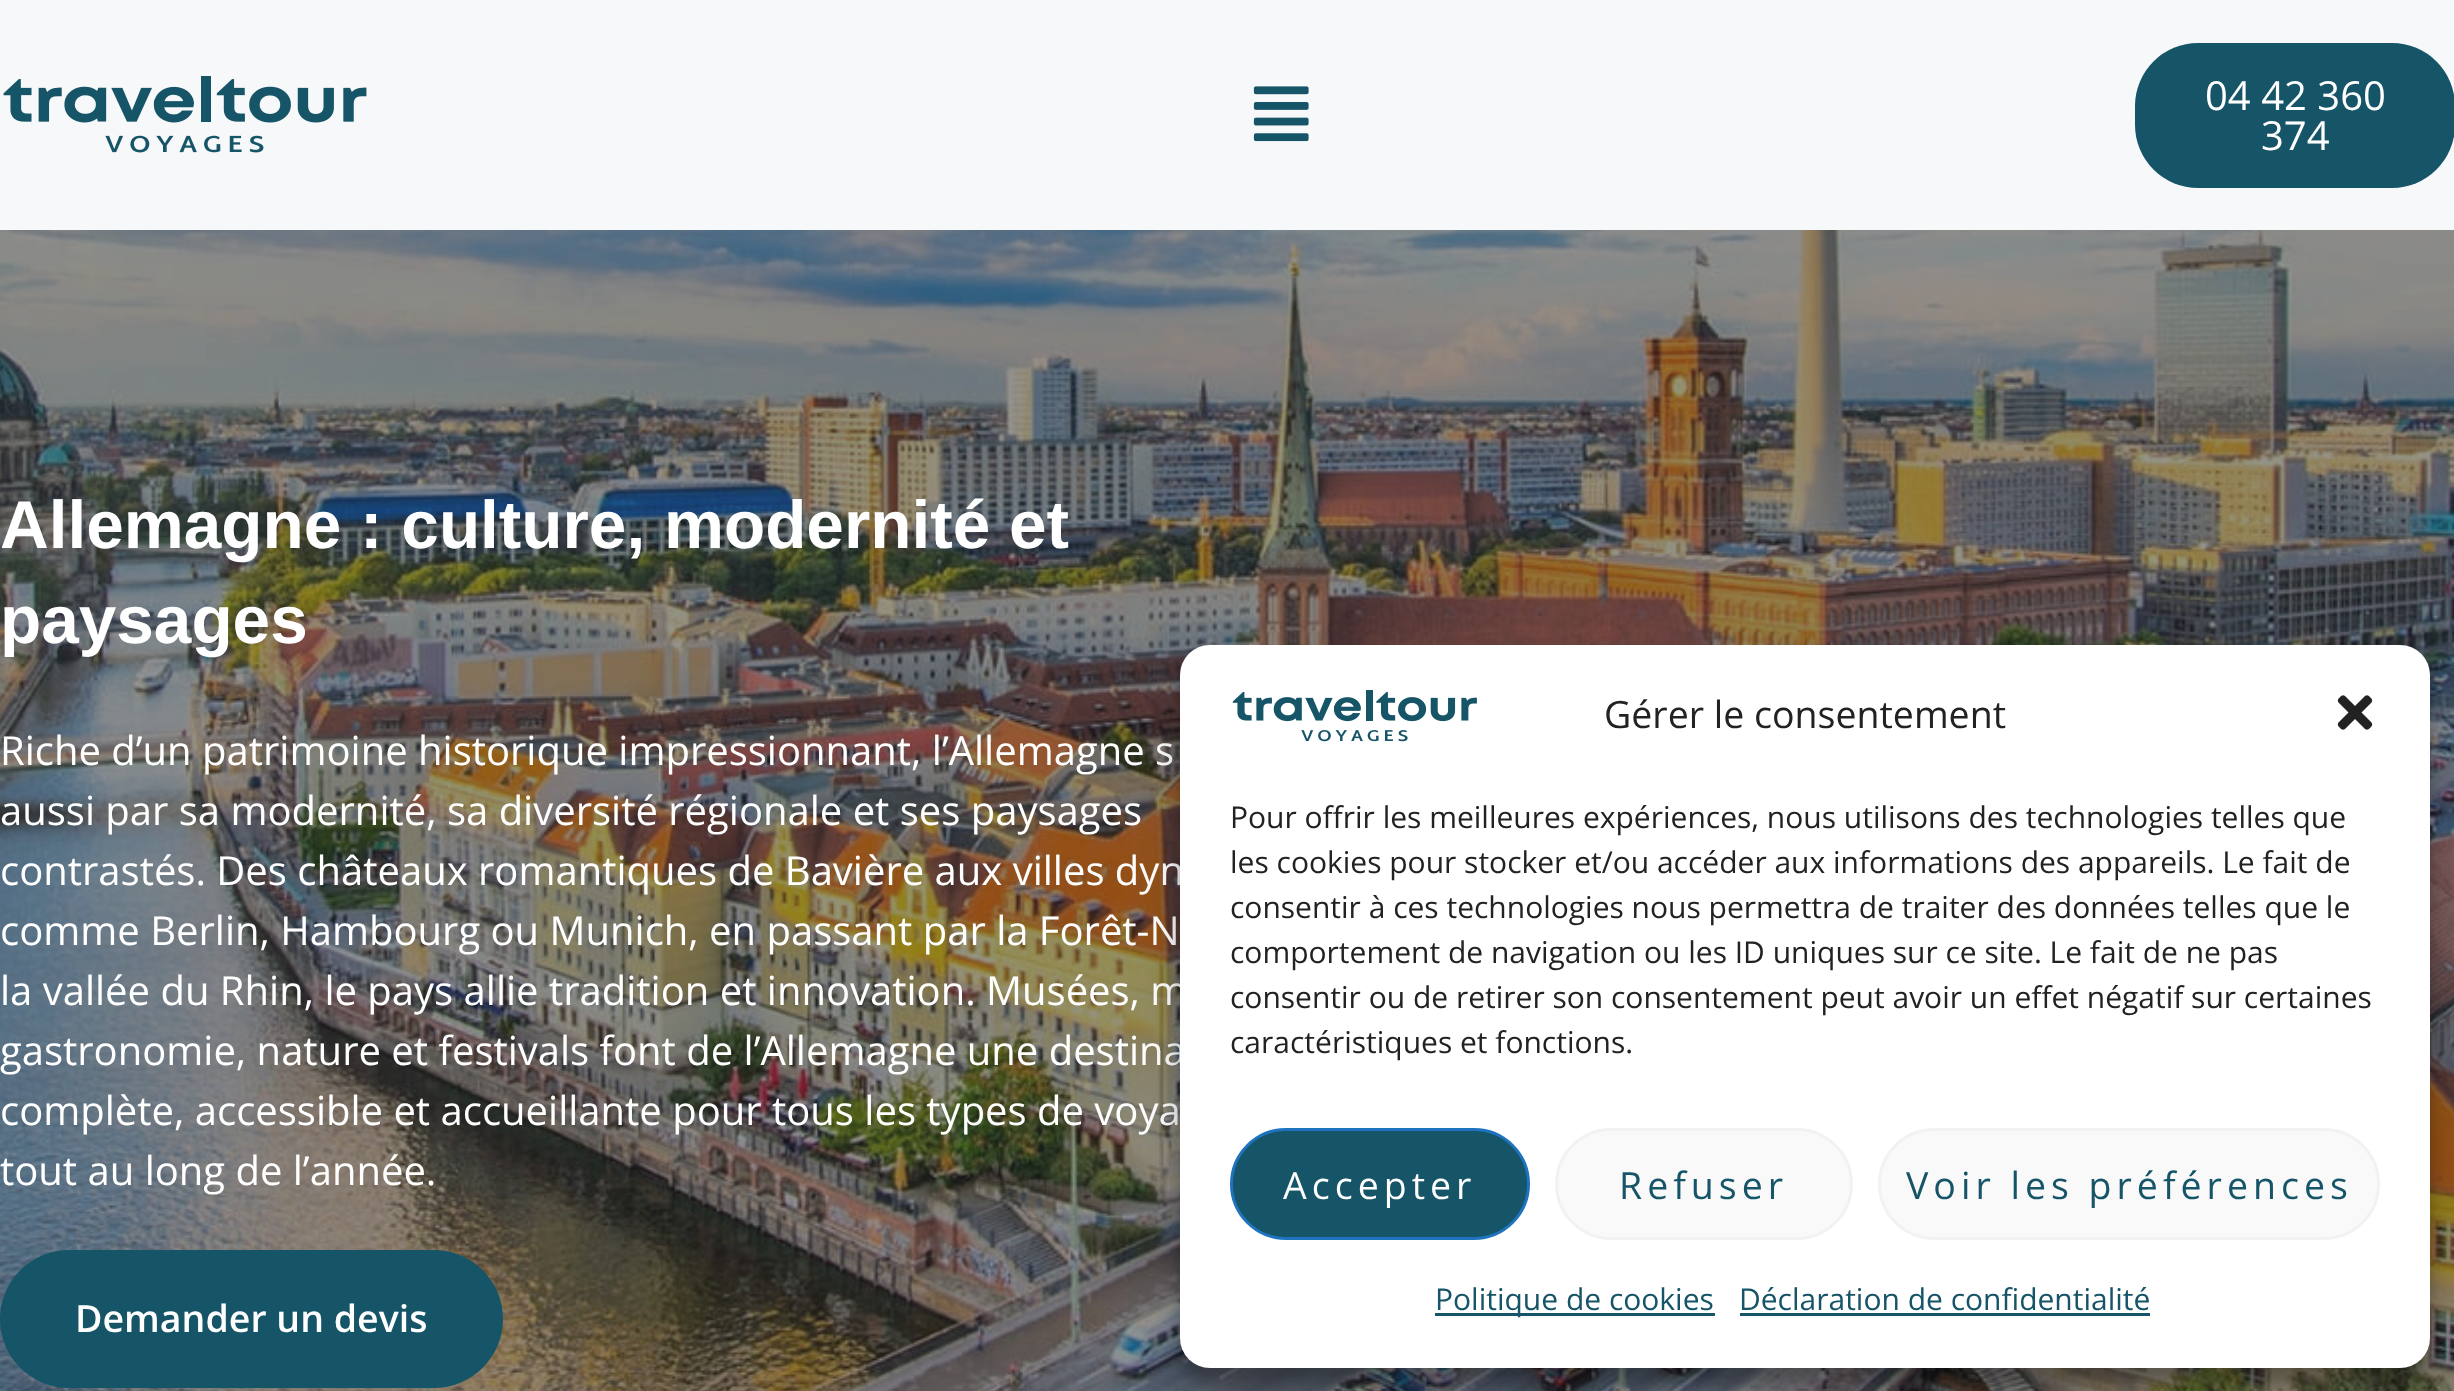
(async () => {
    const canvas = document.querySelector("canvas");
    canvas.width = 2454;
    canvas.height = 1391;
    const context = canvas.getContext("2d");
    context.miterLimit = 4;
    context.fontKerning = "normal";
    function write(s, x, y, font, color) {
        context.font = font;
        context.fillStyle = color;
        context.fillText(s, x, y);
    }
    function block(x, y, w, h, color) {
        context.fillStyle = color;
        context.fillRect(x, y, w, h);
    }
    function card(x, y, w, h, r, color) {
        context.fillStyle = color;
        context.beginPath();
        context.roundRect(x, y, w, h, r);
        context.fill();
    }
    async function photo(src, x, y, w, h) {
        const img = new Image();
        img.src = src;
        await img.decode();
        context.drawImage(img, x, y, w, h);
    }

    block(0, 0, 2454, 1391, "rgb(247, 248, 249)");
    await photo("media/1.png", 3, 76, 364, 77);
    await photo("media/2.png", 1253, 86, 56, 56);
    card(2135, 43, 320, 145, 63, "rgb(22, 84, 104)");
    write("04 42 360", 2205, 110, "40px Open Sans", "rgb(255, 255, 255)");
    write("374", 2261, 150, "40px Open Sans", "rgb(255, 255, 255)");
    await photo("media/3.png", 0, 230, 2454, 1161);
    write("Allemagne : culture, modernité et", 0, 548, "bold 67.5px Liberation Sans", "rgb(255, 255, 255)");
    write("paysages", 0, 643, "bold 67.5px Liberation Sans", "rgb(255, 255, 255)");
    write("Riche d’un patrimoine historique impressionnant, l’Allemagne s", 0, 765, "40px Open Sans", "rgb(255, 255, 255)");
    write("aussi par sa modernité, sa diversité régionale et ses paysages", 0, 825, "40px Open Sans", "rgb(255, 255, 255)");
    write("contrastés. Des châteaux romantiques de Bavière aux villes dyn", 0, 885, "40px Open Sans", "rgb(255, 255, 255)");
    write("comme Berlin, Hambourg ou Munich, en passant par la Forêt-N", 0, 945, "40px Open Sans", "rgb(255, 255, 255)");
    write("la vallée du Rhin, le pays allie tradition et innovation. Musées, m", 0, 1005, "40px Open Sans", "rgb(255, 255, 255)");
    write("gastronomie, nature et festivals font de l’Allemagne une destina", 0, 1065, "40px Open Sans", "rgb(255, 255, 255)");
    write("complète, accessible et accueillante pour tous les types de voya", 0, 1125, "40px Open Sans", "rgb(255, 255, 255)");
    write("tout au long de l’année.", 0, 1185, "40px Open Sans", "rgb(255, 255, 255)");
    card(0, 1250, 503, 138, 69, "rgb(22, 84, 104)");
    write("Demander un devis", 75, 1332, "600 37.5px Open Sans", "rgb(255, 255, 255)");
    context.fillStyle = "rgba(0, 0, 0, 0.23)";
    context.filter = "blur(7.5px)";
    context.beginPath();
    context.roundRect(1180, 660, 1250, 723, 30);
    context.fill();
    context.filter = "none";
    context.fillStyle = "rgba(0, 0, 0, 0.19)";
    context.filter = "blur(25px)";
    context.beginPath();
    context.roundRect(1180, 670, 1250, 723, 30);
    context.fill();
    context.filter = "none";
    card(1180, 645, 1250, 723, 30, "rgb(255, 255, 255)");
    await photo("media/4.png", 1232, 690, 245, 52);
    write("Gérer le consentement", 1604, 728, "37.5px Open Sans", "rgb(34, 34, 34)");
    await photo("media/5.png", 2337, 695, 36, 35);
    write("Pour offrir les meilleures expériences, nous utilisons des technologies telles que", 1230, 828, "30px Open Sans", "rgb(34, 34, 34)");
    write("les cookies pour stocker et/ou accéder aux informations des appareils. Le fait de", 1230, 873, "30px Open Sans", "rgb(34, 34, 34)");
    write("consentir à ces technologies nous permettra de traiter des données telles que le", 1230, 918, "30px Open Sans", "rgb(34, 34, 34)");
    write("comportement de navigation ou les ID uniques sur ce site. Le fait de ne pas", 1230, 963, "30px Open Sans", "rgb(34, 34, 34)");
    write("consentir ou de retirer son consentement peut avoir un effet négatif sur certaines", 1230, 1008, "30px Open Sans", "rgb(34, 34, 34)");
    write("caractéristiques et fonctions.", 1230, 1053, "30px Open Sans", "rgb(34, 34, 34)");
    context.fillStyle = "rgb(22, 84, 104)";
    context.beginPath();
    context.roundRect(1231.5, 1129.5, 297, 109, 54.5);
    context.fill();
    context.strokeStyle = "rgb(30, 115, 190)";
    context.lineWidth = 3;
    context.stroke();
    context.letterSpacing = "5px";
    write("Accepter", 1283, 1199, "37.5px Open Sans", "rgb(255, 255, 255)");
    context.fillStyle = "rgb(249, 249, 249)";
    context.beginPath();
    context.roundRect(1556.5, 1129.5, 295, 109, 54.5);
    context.fill();
    context.strokeStyle = "rgb(242, 242, 242)";
    context.stroke();
    write("Refuser", 1619, 1199, "37.5px Open Sans", "rgb(22, 84, 104)");
    context.fillStyle = "rgb(249, 249, 249)";
    context.beginPath();
    context.roundRect(1879.5, 1129.5, 499, 109, 54.5);
    context.fill();
    context.stroke();
    write("Voir les préférences", 1906, 1199, "37.5px Open Sans", "rgb(22, 84, 104)");
    block(1435, 1313, 280, 3, "rgb(22, 84, 104)");
    context.letterSpacing = "0px";
    write("Politique de cookies", 1435, 1310, "30px Open Sans", "rgb(22, 84, 104)");
    write("Déclaration de confidentialité", 1739, 1310, "30px Open Sans", "rgb(22, 84, 104)");
    block(1740, 1313, 410, 3, "rgb(22, 84, 104)");
})();
